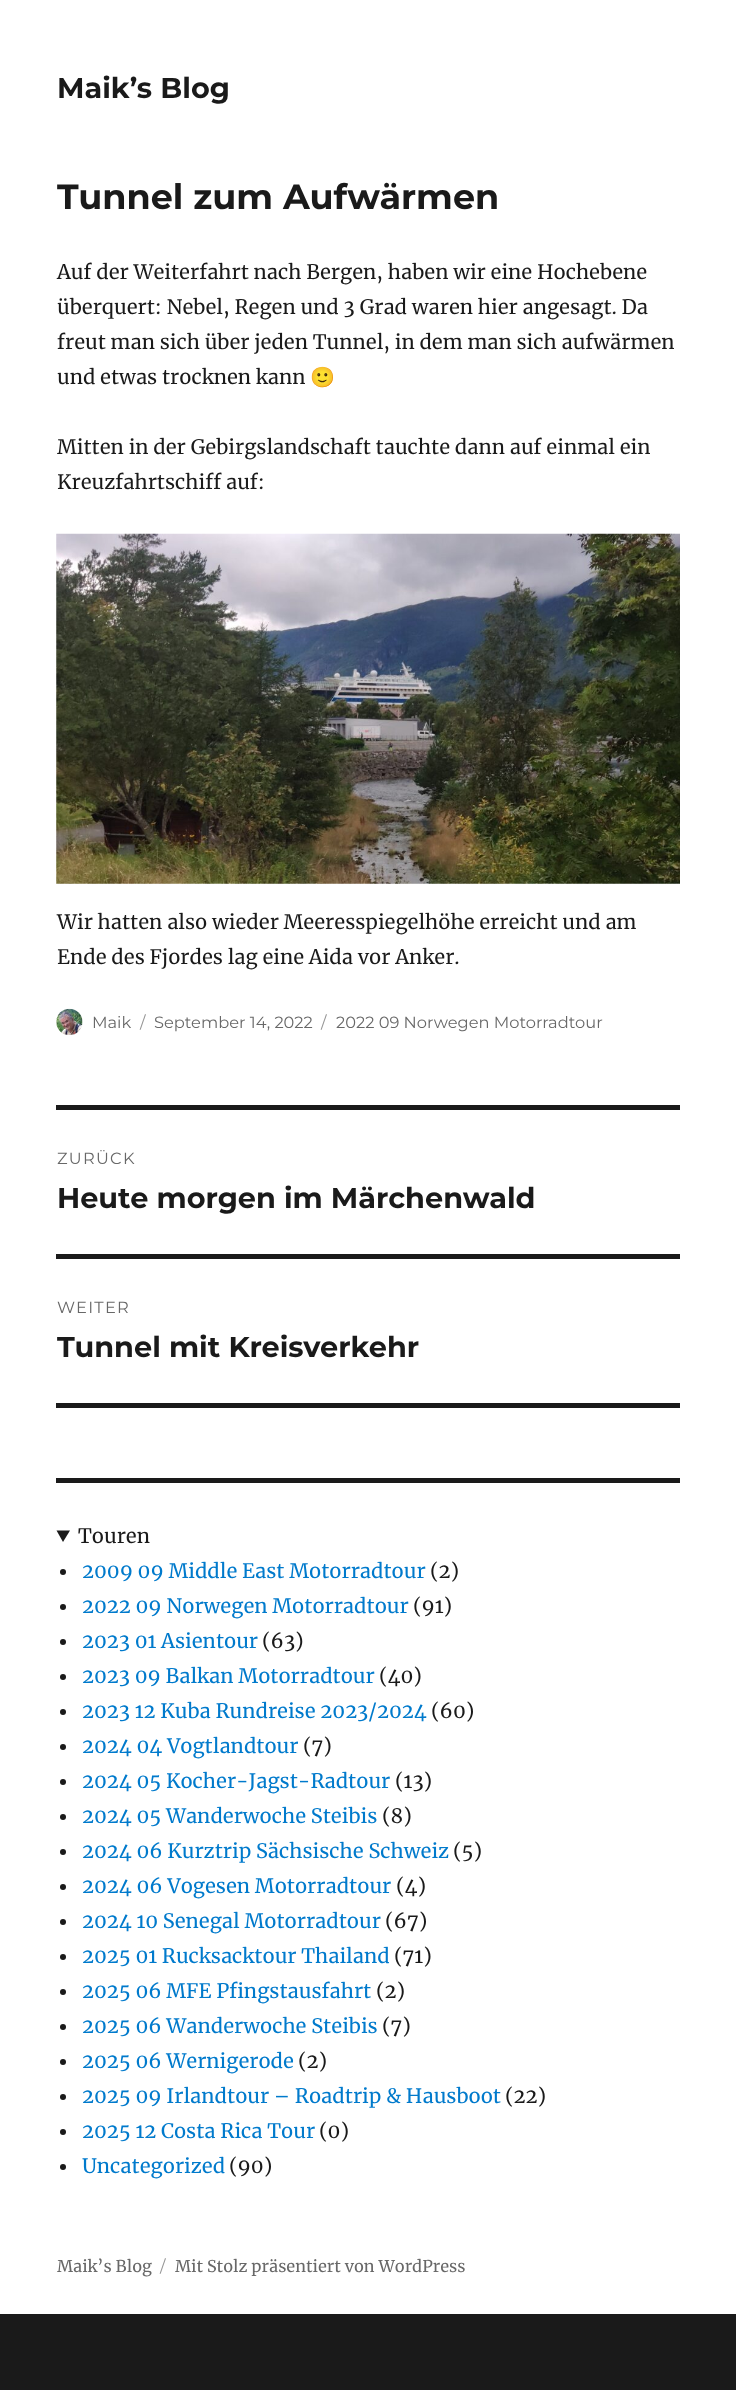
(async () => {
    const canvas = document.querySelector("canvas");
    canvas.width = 736;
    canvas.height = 2390;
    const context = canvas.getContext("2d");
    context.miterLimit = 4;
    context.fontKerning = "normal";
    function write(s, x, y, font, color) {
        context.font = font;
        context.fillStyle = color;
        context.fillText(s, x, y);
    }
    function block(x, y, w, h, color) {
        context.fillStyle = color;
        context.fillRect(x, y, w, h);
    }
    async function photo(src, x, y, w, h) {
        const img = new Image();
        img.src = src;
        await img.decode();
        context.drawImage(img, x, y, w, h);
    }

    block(0, 0, 736, 2390, "rgb(26, 26, 26)");
    block(0, 0, 736, 2314, "rgb(255, 255, 255)");
    write("Maik’s Blog", 57, 98, "100 28.75px 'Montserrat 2'", "rgb(26, 26, 26)");
    write("Tunnel zum Aufwärmen", 57, 209, "100 35px 'Montserrat 2'", "rgb(26, 26, 26)");
    write("Auf der Weiterfahrt nach Bergen, haben wir eine Hochebene", 57, 279, "20px Merriweather", "rgb(26, 26, 26)");
    write("überquert: Nebel, Regen und 3 Grad waren hier angesagt. Da", 57, 314, "20px Merriweather", "rgb(26, 26, 26)");
    write("freut man sich über jeden Tunnel, in dem man sich aufwärmen", 57, 349, "20px Merriweather", "rgb(26, 26, 26)");
    write("und etwas trocknen kann", 57, 384, "20px Merriweather", "rgb(26, 26, 26)");
    write("🙂", 310, 384, "20px Noto Color Emoji", "rgb(26, 26, 26)");
    write("Mitten in der Gebirgslandschaft tauchte dann auf einmal ein", 57, 454, "20px Merriweather", "rgb(26, 26, 26)");
    write("Kreuzfahrtschiff auf:", 57, 489, "20px Merriweather", "rgb(26, 26, 26)");
    await photo("media/1.png", 56, 533, 624, 351);
    write("Wir hatten also wieder Meeresspiegelhöhe erreicht und am", 57, 929, "20px Merriweather", "rgb(26, 26, 26)");
    write("Ende des Fjordes lag eine Aida vor Anker.", 57, 964, "20px Merriweather", "rgb(26, 26, 26)");
    await photo("media/2.png", 56, 1008, 27, 27);
    write("Maik", 92, 1028, "100 16.25px Montserrat", "rgb(104, 104, 104)");
    write("/", 140, 1028, "100 16.25px Montserrat", "rgb(149, 149, 149)");
    write("September 14, 2022", 154, 1028, "100 16.25px Montserrat", "rgb(104, 104, 104)");
    write("/", 321, 1028, "100 16.25px Montserrat", "rgb(149, 149, 149)");
    write("2022 09 Norwegen Motorradtour", 336, 1028, "100 16.25px Montserrat", "rgb(104, 104, 104)");
    block(56, 1105, 624, 5, "rgb(26, 26, 26)");
    block(56, 1403, 624, 5, "rgb(26, 26, 26)");
    context.letterSpacing = "1.25px";
    write("ZURÜCK", 57, 1164, "100 16.25px Montserrat", "rgb(104, 104, 104)");
    context.letterSpacing = "0px";
    write("Heute morgen im Märchenwald", 57, 1208, "100 28.75px 'Montserrat 2'", "rgb(26, 26, 26)");
    block(56, 1254, 624, 5, "rgb(26, 26, 26)");
    context.letterSpacing = "1.25px";
    write("WEITER", 57, 1313, "100 16.25px Montserrat", "rgb(104, 104, 104)");
    context.letterSpacing = "0px";
    write("Tunnel mit Kreisverkehr", 57, 1357, "100 28.75px 'Montserrat 2'", "rgb(26, 26, 26)");
    block(56, 1478, 624, 5, "rgb(26, 26, 26)");
    context.beginPath();
    context.moveTo(56.5, 1530.5);
    context.lineTo(70, 1530.5);
    context.lineTo(63, 1542);
    context.closePath();
    context.fill();
    write("Touren", 78, 1543, "20px Merriweather", "rgb(26, 26, 26)");
    context.beginPath();
    context.arc(63, 1572, 3, 0, Math.PI * 2);
    context.fill();
    write("2009 09 Middle East Motorradtour", 82, 1578, "20px Merriweather", "rgb(0, 122, 204)");
    write("(2)", 430, 1578, "20px Merriweather", "rgb(26, 26, 26)");
    context.beginPath();
    context.arc(63, 1607, 3, 0, Math.PI * 2);
    context.fill();
    write("2022 09 Norwegen Motorradtour", 82, 1613, "20px Merriweather", "rgb(0, 122, 204)");
    write("(91)", 413, 1613, "20px Merriweather", "rgb(26, 26, 26)");
    context.beginPath();
    context.arc(63, 1642, 3, 0, Math.PI * 2);
    context.fill();
    write("2023 01 Asientour", 82, 1648, "20px Merriweather", "rgb(0, 122, 204)");
    write("(63)", 262, 1648, "20px Merriweather", "rgb(26, 26, 26)");
    context.beginPath();
    context.arc(63, 1677, 3, 0, Math.PI * 2);
    context.fill();
    write("2023 09 Balkan Motorradtour", 82, 1683, "20px Merriweather", "rgb(0, 122, 204)");
    write("(40)", 379, 1683, "20px Merriweather", "rgb(26, 26, 26)");
    context.beginPath();
    context.arc(63, 1712, 3, 0, Math.PI * 2);
    context.fill();
    write("2023 12 Kuba Rundreise 2023/2024", 82, 1718, "20px Merriweather", "rgb(0, 122, 204)");
    write("(60)", 431, 1718, "20px Merriweather", "rgb(26, 26, 26)");
    context.beginPath();
    context.arc(63, 1747, 3, 0, Math.PI * 2);
    context.fill();
    write("2024 04 Vogtlandtour", 82, 1753, "20px Merriweather", "rgb(0, 122, 204)");
    write("(7)", 303, 1753, "20px Merriweather", "rgb(26, 26, 26)");
    context.beginPath();
    context.arc(63, 1782, 3, 0, Math.PI * 2);
    context.fill();
    write("2024 05 Kocher-Jagst-Radtour", 82, 1788, "20px Merriweather", "rgb(0, 122, 204)");
    write("(13)", 395, 1788, "20px Merriweather", "rgb(26, 26, 26)");
    context.beginPath();
    context.arc(63, 1817, 3, 0, Math.PI * 2);
    context.fill();
    write("2024 05 Wanderwoche Steibis", 82, 1823, "20px Merriweather", "rgb(0, 122, 204)");
    write("(8)", 382, 1823, "20px Merriweather", "rgb(26, 26, 26)");
    context.beginPath();
    context.arc(63, 1852, 3, 0, Math.PI * 2);
    context.fill();
    write("2024 06 Kurztrip Sächsische Schweiz", 82, 1858, "20px Merriweather", "rgb(0, 122, 204)");
    write("(5)", 453, 1858, "20px Merriweather", "rgb(26, 26, 26)");
    context.beginPath();
    context.arc(63, 1887, 3, 0, Math.PI * 2);
    context.fill();
    write("2024 06 Vogesen Motorradtour", 82, 1893, "20px Merriweather", "rgb(0, 122, 204)");
    write("(4)", 396, 1893, "20px Merriweather", "rgb(26, 26, 26)");
    context.beginPath();
    context.arc(63, 1922, 3, 0, Math.PI * 2);
    context.fill();
    write("2024 10 Senegal Motorradtour", 82, 1928, "20px Merriweather", "rgb(0, 122, 204)");
    write("(67)", 385, 1928, "20px Merriweather", "rgb(26, 26, 26)");
    context.beginPath();
    context.arc(63, 1957, 3, 0, Math.PI * 2);
    context.fill();
    write("2025 01 Rucksacktour Thailand", 82, 1963, "20px Merriweather", "rgb(0, 122, 204)");
    write("(71)", 394, 1963, "20px Merriweather", "rgb(26, 26, 26)");
    context.beginPath();
    context.arc(63, 1992, 3, 0, Math.PI * 2);
    context.fill();
    write("2025 06 MFE Pfingstausfahrt", 82, 1998, "20px Merriweather", "rgb(0, 122, 204)");
    write("(2)", 376, 1998, "20px Merriweather", "rgb(26, 26, 26)");
    context.beginPath();
    context.arc(63, 2027, 3, 0, Math.PI * 2);
    context.fill();
    write("2025 06 Wanderwoche Steibis", 82, 2033, "20px Merriweather", "rgb(0, 122, 204)");
    write("(7)", 382, 2033, "20px Merriweather", "rgb(26, 26, 26)");
    context.beginPath();
    context.arc(63, 2062, 3, 0, Math.PI * 2);
    context.fill();
    write("2025 06 Wernigerode", 82, 2068, "20px Merriweather", "rgb(0, 122, 204)");
    write("(2)", 298, 2068, "20px Merriweather", "rgb(26, 26, 26)");
    context.beginPath();
    context.arc(63, 2097, 3, 0, Math.PI * 2);
    context.fill();
    write("2025 09 Irlandtour – Roadtrip & Hausboot", 82, 2103, "20px Merriweather", "rgb(0, 122, 204)");
    write("(22)", 505, 2103, "20px Merriweather", "rgb(26, 26, 26)");
    context.beginPath();
    context.arc(63, 2132, 3, 0, Math.PI * 2);
    context.fill();
    write("2025 12 Costa Rica Tour", 82, 2138, "20px Merriweather", "rgb(0, 122, 204)");
    write("(0)", 319, 2138, "20px Merriweather", "rgb(26, 26, 26)");
    context.beginPath();
    context.arc(63, 2167, 3, 0, Math.PI * 2);
    context.fill();
    write("Uncategorized", 82, 2173, "20px Merriweather", "rgb(0, 122, 204)");
    write("(90)", 229, 2173, "20px Merriweather", "rgb(26, 26, 26)");
    write("Maik’s Blog", 57, 2272, "16.25px Merriweather", "rgb(104, 104, 104)");
    write("/", 160, 2272, "100 16.25px Montserrat", "rgb(149, 149, 149)");
    write("Mit Stolz präsentiert von WordPress", 175, 2272, "16.25px Merriweather", "rgb(104, 104, 104)");
})();
